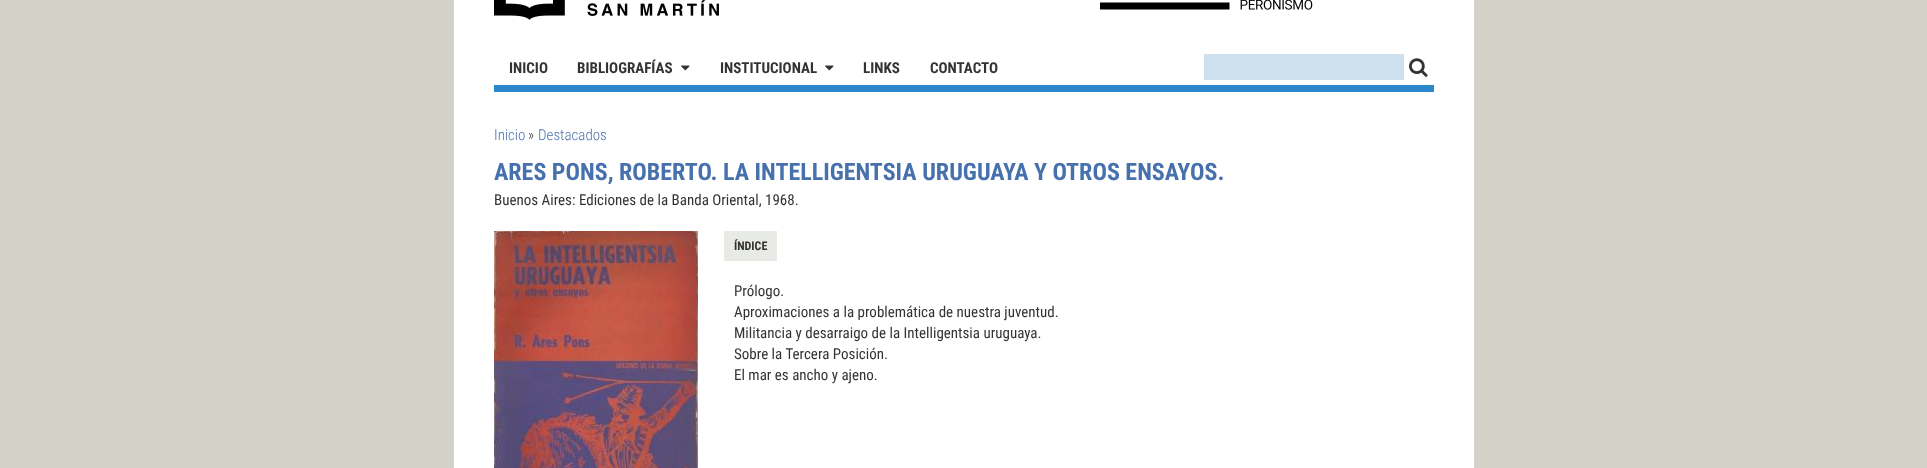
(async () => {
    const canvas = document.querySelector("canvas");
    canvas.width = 1927;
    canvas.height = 468;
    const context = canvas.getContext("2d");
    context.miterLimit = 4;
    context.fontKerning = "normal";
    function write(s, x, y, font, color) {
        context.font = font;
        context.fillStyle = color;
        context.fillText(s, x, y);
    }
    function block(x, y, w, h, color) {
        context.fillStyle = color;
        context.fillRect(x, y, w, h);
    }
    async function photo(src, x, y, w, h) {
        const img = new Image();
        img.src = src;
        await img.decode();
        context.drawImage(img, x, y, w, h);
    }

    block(0, 0, 1927, 468, "rgb(210, 210, 201)");
    block(454, 0, 1020, 468, "rgb(255, 255, 255)");
    await photo("media/1.png", 494, 0, 225, 20);
    await photo("media/2.png", 1100, 0, 213, 10);
    block(494, 85, 940, 7, "rgb(44, 136, 205)");
    write("INICIO", 509, 73, "bold 15px Roboto Condensed", "rgb(51, 51, 51)");
    write("BIBLIOGRAFÍAS", 577, 73, "bold 15px Roboto Condensed", "rgb(51, 51, 51)");
    await photo("media/3.png", 681, 65, 9, 6);
    write("INSTITUCIONAL", 720, 73, "bold 15px Roboto Condensed", "rgb(51, 51, 51)");
    await photo("media/3.png", 825, 65, 9, 6);
    write("LINKS", 863, 73, "bold 15px Roboto Condensed", "rgb(51, 51, 51)");
    write("CONTACTO", 930, 73, "bold 15px Roboto Condensed", "rgb(51, 51, 51)");
    block(1204, 54, 200, 26, "rgb(207, 225, 239)");
    await photo("media/4.png", 1409, 58, 19, 19);
    write("Inicio", 494, 140, "300 15px Roboto Condensed", "rgb(71, 113, 173)");
    write("»", 528, 140, "300 15px Roboto Condensed", "rgb(51, 51, 51)");
    write("Destacados", 538, 140, "300 15px Roboto Condensed", "rgb(71, 113, 173)");
    write("ARES PONS, ROBERTO. LA INTELLIGENTSIA URUGUAYA Y OTROS ENSAYOS.", 494, 180, "bold 24px Roboto Condensed", "rgb(71, 113, 173)");
    write("Buenos Aires: Ediciones de la Banda Oriental, 1968.", 494, 205, "15px Roboto Condensed", "rgb(51, 51, 51)");
    await photo("media/5.png", 494, 231, 204, 237);
    block(724, 231, 53, 30, "rgb(232, 234, 229)");
    write("ÍNDICE", 734, 250, "bold 12px Roboto Condensed", "rgb(51, 51, 51)");
    write("Prólogo.", 734, 296, "15px Roboto Condensed", "rgb(51, 51, 51)");
    write("Aproximaciones a la problemática de nuestra juventud.", 734, 317, "15px Roboto Condensed", "rgb(51, 51, 51)");
    write("Militancia y desarraigo de la Intelligentsia uruguaya.", 734, 338, "15px Roboto Condensed", "rgb(51, 51, 51)");
    write("Sobre la Tercera Posición.", 734, 359, "15px Roboto Condensed", "rgb(51, 51, 51)");
    write("El mar es ancho y ajeno.", 734, 380, "15px Roboto Condensed", "rgb(51, 51, 51)");
})();
